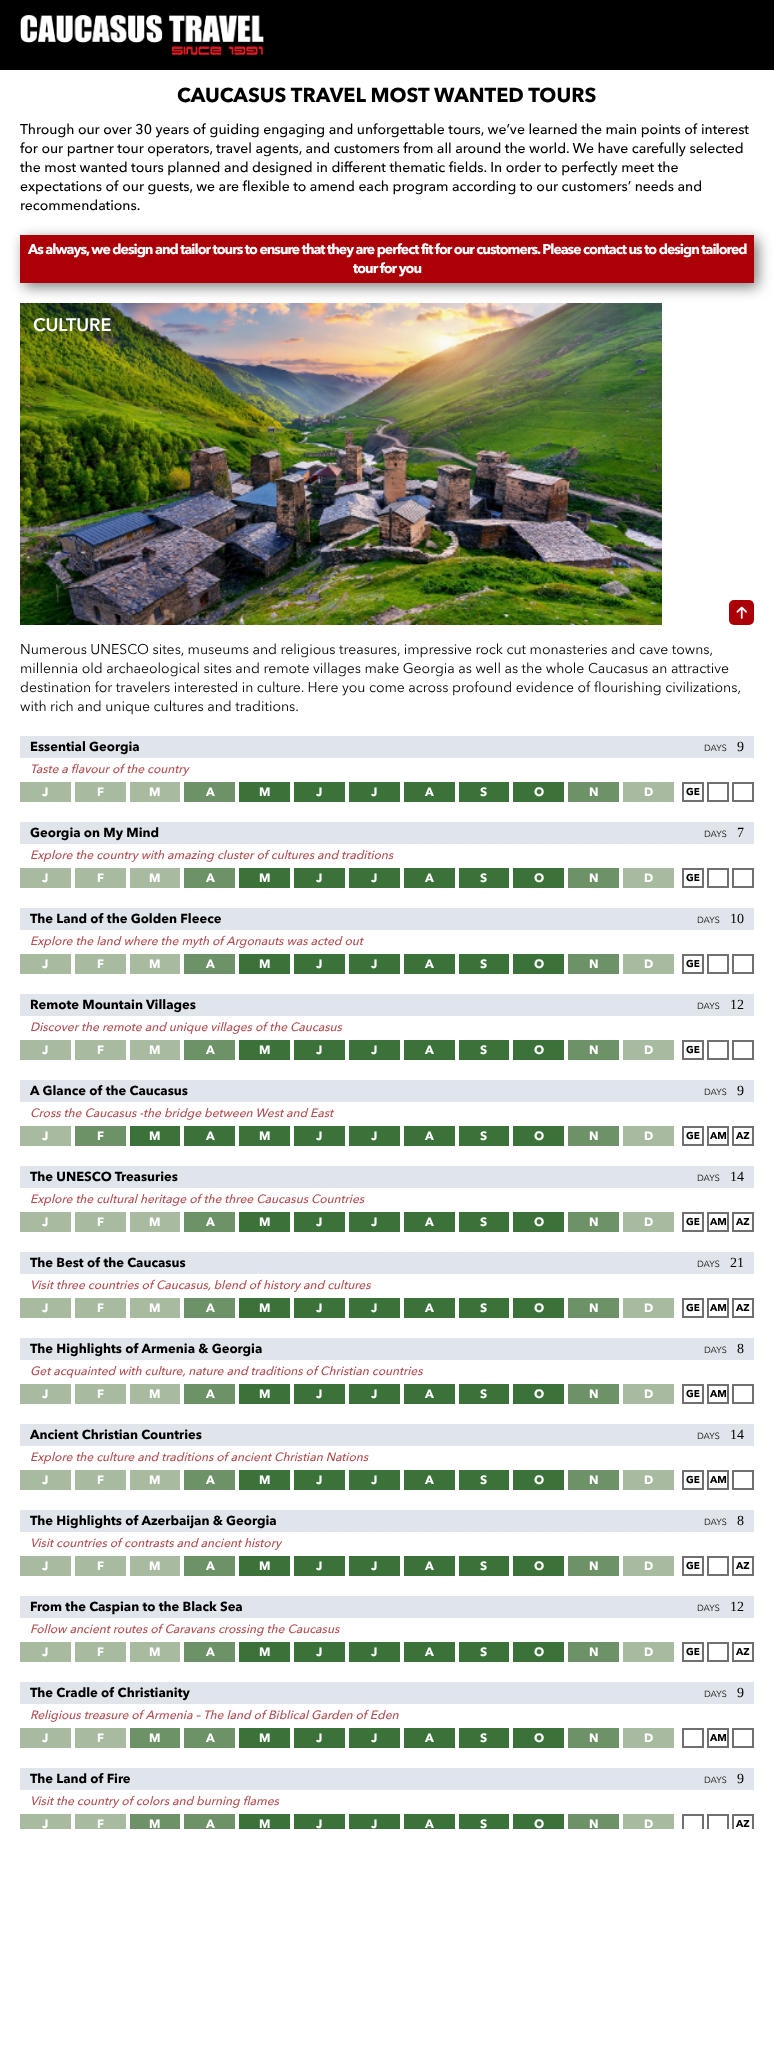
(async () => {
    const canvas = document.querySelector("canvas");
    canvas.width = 774;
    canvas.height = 2070;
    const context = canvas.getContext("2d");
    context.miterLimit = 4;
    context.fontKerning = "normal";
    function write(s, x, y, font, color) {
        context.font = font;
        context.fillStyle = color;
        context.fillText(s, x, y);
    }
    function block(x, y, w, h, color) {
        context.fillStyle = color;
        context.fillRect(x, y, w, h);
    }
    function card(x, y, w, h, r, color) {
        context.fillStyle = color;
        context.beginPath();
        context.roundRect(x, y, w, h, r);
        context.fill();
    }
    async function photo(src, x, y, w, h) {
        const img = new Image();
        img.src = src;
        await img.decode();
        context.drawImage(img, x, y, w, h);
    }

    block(0, 0, 774, 2070, "rgb(255, 255, 255)");
    block(0, 0, 774, 70, "rgb(0, 0, 0)");
    await photo("media/1.png", 20, 15, 244, 40);
    write("CAUCASUS TRAVEL MOST WANTED TOURS", 177, 102, "bold 20px Avenir Next", "rgb(0, 0, 0)");
    write("Through our over 30 years of guiding engaging and unforgettable tours, we’ve learned the main points of interest", 20, 134, "500 14px Avenir Next", "rgb(0, 0, 0)");
    write("for our partner tour operators, travel agents, and customers from all around the world. We have carefully selected", 20, 153, "500 14px Avenir Next", "rgb(0, 0, 0)");
    write("the most wanted tours planned and designed in different thematic fields. In order to perfectly meet the", 20, 172, "500 14px Avenir Next", "rgb(0, 0, 0)");
    write("expectations of our guests, we are flexible to amend each program according to our customers’ needs and", 20, 191, "500 14px Avenir Next", "rgb(0, 0, 0)");
    write("recommendations.", 20, 210, "500 14px Avenir Next", "rgb(0, 0, 0)");
    context.fillStyle = "rgba(0, 0, 0, 0.5)";
    context.filter = "blur(7px)";
    context.beginPath();
    context.rect(24, 239, 734, 48);
    context.fill();
    context.filter = "none";
    block(20, 235, 734, 48, "rgb(172, 0, 8)");
    context.letterSpacing = "-1px";
    write("As always, we design and tailor tours to ensure that they are perfect fit for our customers. Please contact us to design tailored", 28, 254, "bold 14px Avenir Next", "rgb(255, 255, 255)");
    write("tour for you", 353, 273, "bold 14px Avenir Next", "rgb(255, 255, 255)");
    await photo("media/2.png", 20, 303, 642, 322);
    context.letterSpacing = "0px";
    write("CULTURE", 33, 331, "600 18px Avenir Next", "rgb(255, 255, 255)");
    card(729, 600, 25, 25, 5, "rgb(172, 0, 8)");
    await photo("media/3.png", 736, 606, 11, 13);
    write("Numerous UNESCO sites, museums and religious treasures, impressive rock cut monasteries", 20, 654, "14px Avenir Next", "rgb(0, 0, 0)");
    write("and cave towns,", 611, 654, "14px Avenir Next", "rgb(0, 0, 0)");
    write("millennia old archaeological sites and remote villages make Georgia as well as the whole Caucasus an attractive", 20, 673, "14px Avenir Next", "rgb(0, 0, 0)");
    write("destination for travelers interested in culture. Here you come across profound evidence of flourishing civilizations,", 20, 692, "14px Avenir Next", "rgb(0, 0, 0)");
    write("with rich and unique cultures and traditions.", 20, 711, "14px Avenir Next", "rgb(0, 0, 0)");
    block(20, 736, 734, 22, "rgb(224, 228, 235)");
    write("Essential Georgia", 30, 751, "bold 13px Avenir Next", "rgb(0, 0, 0)");
    write("DAYS", 704, 751, "9px Avenir Next", "rgb(0, 0, 0)");
    write("9", 737, 751, "14px Liberation Serif", "rgb(0, 0, 0)");
    write("Taste a flavour of the country", 30, 773, "italic 500 12px Avenir Next", "rgb(177, 79, 82)");
    block(20, 782, 51, 20, "rgb(168, 187, 160)");
    write("J", 42, 796, "bold 12px Avenir Next", "rgb(255, 255, 255)");
    block(75, 782, 51, 20, "rgb(168, 187, 160)");
    write("F", 97, 796, "bold 12px Avenir Next", "rgb(255, 255, 255)");
    block(130, 782, 50, 20, "rgb(168, 187, 160)");
    write("M", 149, 796, "bold 12px Avenir Next", "rgb(255, 255, 255)");
    block(184, 782, 51, 20, "rgb(110, 146, 103)");
    write("A", 206, 796, "bold 12px Avenir Next", "rgb(255, 255, 255)");
    block(239, 782, 51, 20, "rgb(58, 114, 57)");
    write("M", 259, 796, "bold 12px Avenir Next", "rgb(255, 255, 255)");
    block(294, 782, 51, 20, "rgb(58, 114, 57)");
    write("J", 316, 796, "bold 12px Avenir Next", "rgb(255, 255, 255)");
    block(349, 782, 51, 20, "rgb(58, 114, 57)");
    write("J", 371, 796, "bold 12px Avenir Next", "rgb(255, 255, 255)");
    block(404, 782, 51, 20, "rgb(58, 114, 57)");
    write("A", 425, 796, "bold 12px Avenir Next", "rgb(255, 255, 255)");
    block(459, 782, 50, 20, "rgb(58, 114, 57)");
    write("S", 480, 796, "bold 12px Avenir Next", "rgb(255, 255, 255)");
    block(513, 782, 51, 20, "rgb(58, 114, 57)");
    write("O", 534, 796, "bold 12px Avenir Next", "rgb(255, 255, 255)");
    block(568, 782, 51, 20, "rgb(110, 146, 103)");
    write("N", 589, 796, "bold 12px Avenir Next", "rgb(255, 255, 255)");
    block(623, 782, 51, 20, "rgb(168, 187, 160)");
    write("D", 644, 796, "bold 12px Avenir Next", "rgb(255, 255, 255)");
    context.strokeStyle = "rgb(112, 112, 112)";
    context.lineWidth = 2;
    context.strokeRect(683, 783, 20, 18);
    write("GE", 686, 795, "bold 10px Avenir Next", "rgb(0, 0, 0)");
    context.strokeRect(708, 783, 20, 18);
    context.strokeRect(733, 783, 20, 18);
    block(20, 822, 734, 22, "rgb(224, 228, 235)");
    write("Georgia on My Mind", 30, 837, "bold 13px Avenir Next", "rgb(0, 0, 0)");
    write("DAYS", 704, 837, "9px Avenir Next", "rgb(0, 0, 0)");
    write("7", 737, 837, "14px Liberation Serif", "rgb(0, 0, 0)");
    write("Explore the country with amazing cluster of cultures and traditions", 30, 859, "italic 500 12px Avenir Next", "rgb(177, 79, 82)");
    block(20, 868, 51, 20, "rgb(168, 187, 160)");
    write("J", 42, 882, "bold 12px Avenir Next", "rgb(255, 255, 255)");
    block(75, 868, 51, 20, "rgb(168, 187, 160)");
    write("F", 97, 882, "bold 12px Avenir Next", "rgb(255, 255, 255)");
    block(130, 868, 50, 20, "rgb(168, 187, 160)");
    write("M", 149, 882, "bold 12px Avenir Next", "rgb(255, 255, 255)");
    block(184, 868, 51, 20, "rgb(110, 146, 103)");
    write("A", 206, 882, "bold 12px Avenir Next", "rgb(255, 255, 255)");
    block(239, 868, 51, 20, "rgb(58, 114, 57)");
    write("M", 259, 882, "bold 12px Avenir Next", "rgb(255, 255, 255)");
    block(294, 868, 51, 20, "rgb(58, 114, 57)");
    write("J", 316, 882, "bold 12px Avenir Next", "rgb(255, 255, 255)");
    block(349, 868, 51, 20, "rgb(58, 114, 57)");
    write("J", 371, 882, "bold 12px Avenir Next", "rgb(255, 255, 255)");
    block(404, 868, 51, 20, "rgb(58, 114, 57)");
    write("A", 425, 882, "bold 12px Avenir Next", "rgb(255, 255, 255)");
    block(459, 868, 50, 20, "rgb(58, 114, 57)");
    write("S", 480, 882, "bold 12px Avenir Next", "rgb(255, 255, 255)");
    block(513, 868, 51, 20, "rgb(58, 114, 57)");
    write("O", 534, 882, "bold 12px Avenir Next", "rgb(255, 255, 255)");
    block(568, 868, 51, 20, "rgb(110, 146, 103)");
    write("N", 589, 882, "bold 12px Avenir Next", "rgb(255, 255, 255)");
    block(623, 868, 51, 20, "rgb(168, 187, 160)");
    write("D", 644, 882, "bold 12px Avenir Next", "rgb(255, 255, 255)");
    context.strokeRect(683, 869, 20, 18);
    write("GE", 686, 881, "bold 10px Avenir Next", "rgb(0, 0, 0)");
    context.strokeRect(708, 869, 20, 18);
    context.strokeRect(733, 869, 20, 18);
    block(20, 908, 734, 22, "rgb(224, 228, 235)");
    write("The Land of the Golden Fleece", 30, 923, "bold 13px Avenir Next", "rgb(0, 0, 0)");
    write("DAYS", 697, 923, "9px Avenir Next", "rgb(0, 0, 0)");
    write("10", 730, 923, "14px Liberation Serif", "rgb(0, 0, 0)");
    write("Explore the land where the myth of Argonauts was acted out", 30, 945, "italic 500 12px Avenir Next", "rgb(177, 79, 82)");
    block(20, 954, 51, 20, "rgb(168, 187, 160)");
    write("J", 42, 968, "bold 12px Avenir Next", "rgb(255, 255, 255)");
    block(75, 954, 51, 20, "rgb(168, 187, 160)");
    write("F", 97, 968, "bold 12px Avenir Next", "rgb(255, 255, 255)");
    block(130, 954, 50, 20, "rgb(168, 187, 160)");
    write("M", 149, 968, "bold 12px Avenir Next", "rgb(255, 255, 255)");
    block(184, 954, 51, 20, "rgb(110, 146, 103)");
    write("A", 206, 968, "bold 12px Avenir Next", "rgb(255, 255, 255)");
    block(239, 954, 51, 20, "rgb(58, 114, 57)");
    write("M", 259, 968, "bold 12px Avenir Next", "rgb(255, 255, 255)");
    block(294, 954, 51, 20, "rgb(58, 114, 57)");
    write("J", 316, 968, "bold 12px Avenir Next", "rgb(255, 255, 255)");
    block(349, 954, 51, 20, "rgb(58, 114, 57)");
    write("J", 371, 968, "bold 12px Avenir Next", "rgb(255, 255, 255)");
    block(404, 954, 51, 20, "rgb(58, 114, 57)");
    write("A", 425, 968, "bold 12px Avenir Next", "rgb(255, 255, 255)");
    block(459, 954, 50, 20, "rgb(58, 114, 57)");
    write("S", 480, 968, "bold 12px Avenir Next", "rgb(255, 255, 255)");
    block(513, 954, 51, 20, "rgb(58, 114, 57)");
    write("O", 534, 968, "bold 12px Avenir Next", "rgb(255, 255, 255)");
    block(568, 954, 51, 20, "rgb(110, 146, 103)");
    write("N", 589, 968, "bold 12px Avenir Next", "rgb(255, 255, 255)");
    block(623, 954, 51, 20, "rgb(168, 187, 160)");
    write("D", 644, 968, "bold 12px Avenir Next", "rgb(255, 255, 255)");
    context.strokeRect(683, 955, 20, 18);
    write("GE", 686, 967, "bold 10px Avenir Next", "rgb(0, 0, 0)");
    context.strokeRect(708, 955, 20, 18);
    context.strokeRect(733, 955, 20, 18);
    block(20, 994, 734, 22, "rgb(224, 228, 235)");
    write("Remote Mountain Villages", 30, 1009, "bold 13px Avenir Next", "rgb(0, 0, 0)");
    write("DAYS", 697, 1009, "9px Avenir Next", "rgb(0, 0, 0)");
    write("12", 730, 1009, "14px Liberation Serif", "rgb(0, 0, 0)");
    write("Discover the remote and unique villages of the Caucasus", 30, 1031, "italic 500 12px Avenir Next", "rgb(177, 79, 82)");
    block(20, 1040, 51, 20, "rgb(168, 187, 160)");
    write("J", 42, 1054, "bold 12px Avenir Next", "rgb(255, 255, 255)");
    block(75, 1040, 51, 20, "rgb(168, 187, 160)");
    write("F", 97, 1054, "bold 12px Avenir Next", "rgb(255, 255, 255)");
    block(130, 1040, 50, 20, "rgb(168, 187, 160)");
    write("M", 149, 1054, "bold 12px Avenir Next", "rgb(255, 255, 255)");
    block(184, 1040, 51, 20, "rgb(110, 146, 103)");
    write("A", 206, 1054, "bold 12px Avenir Next", "rgb(255, 255, 255)");
    block(239, 1040, 51, 20, "rgb(58, 114, 57)");
    write("M", 259, 1054, "bold 12px Avenir Next", "rgb(255, 255, 255)");
    block(294, 1040, 51, 20, "rgb(58, 114, 57)");
    write("J", 316, 1054, "bold 12px Avenir Next", "rgb(255, 255, 255)");
    block(349, 1040, 51, 20, "rgb(58, 114, 57)");
    write("J", 371, 1054, "bold 12px Avenir Next", "rgb(255, 255, 255)");
    block(404, 1040, 51, 20, "rgb(58, 114, 57)");
    write("A", 425, 1054, "bold 12px Avenir Next", "rgb(255, 255, 255)");
    block(459, 1040, 50, 20, "rgb(58, 114, 57)");
    write("S", 480, 1054, "bold 12px Avenir Next", "rgb(255, 255, 255)");
    block(513, 1040, 51, 20, "rgb(58, 114, 57)");
    write("O", 534, 1054, "bold 12px Avenir Next", "rgb(255, 255, 255)");
    block(568, 1040, 51, 20, "rgb(110, 146, 103)");
    write("N", 589, 1054, "bold 12px Avenir Next", "rgb(255, 255, 255)");
    block(623, 1040, 51, 20, "rgb(168, 187, 160)");
    write("D", 644, 1054, "bold 12px Avenir Next", "rgb(255, 255, 255)");
    context.strokeRect(683, 1041, 20, 18);
    write("GE", 686, 1053, "bold 10px Avenir Next", "rgb(0, 0, 0)");
    context.strokeRect(708, 1041, 20, 18);
    context.strokeRect(733, 1041, 20, 18);
    block(20, 1080, 734, 22, "rgb(224, 228, 235)");
    write("A Glance of the Caucasus", 30, 1095, "bold 13px Avenir Next", "rgb(0, 0, 0)");
    write("DAYS", 704, 1095, "9px Avenir Next", "rgb(0, 0, 0)");
    write("9", 737, 1095, "14px Liberation Serif", "rgb(0, 0, 0)");
    write("Cross the Caucasus -the bridge between West and East", 30, 1117, "italic 500 12px Avenir Next", "rgb(177, 79, 82)");
    block(20, 1126, 51, 20, "rgb(168, 187, 160)");
    write("J", 42, 1140, "bold 12px Avenir Next", "rgb(255, 255, 255)");
    block(75, 1126, 51, 20, "rgb(110, 146, 103)");
    write("F", 97, 1140, "bold 12px Avenir Next", "rgb(255, 255, 255)");
    block(130, 1126, 50, 20, "rgb(58, 114, 57)");
    write("M", 149, 1140, "bold 12px Avenir Next", "rgb(255, 255, 255)");
    block(184, 1126, 51, 20, "rgb(58, 114, 57)");
    write("A", 206, 1140, "bold 12px Avenir Next", "rgb(255, 255, 255)");
    block(239, 1126, 51, 20, "rgb(58, 114, 57)");
    write("M", 259, 1140, "bold 12px Avenir Next", "rgb(255, 255, 255)");
    block(294, 1126, 51, 20, "rgb(58, 114, 57)");
    write("J", 316, 1140, "bold 12px Avenir Next", "rgb(255, 255, 255)");
    block(349, 1126, 51, 20, "rgb(58, 114, 57)");
    write("J", 371, 1140, "bold 12px Avenir Next", "rgb(255, 255, 255)");
    block(404, 1126, 51, 20, "rgb(58, 114, 57)");
    write("A", 425, 1140, "bold 12px Avenir Next", "rgb(255, 255, 255)");
    block(459, 1126, 50, 20, "rgb(58, 114, 57)");
    write("S", 480, 1140, "bold 12px Avenir Next", "rgb(255, 255, 255)");
    block(513, 1126, 51, 20, "rgb(58, 114, 57)");
    write("O", 534, 1140, "bold 12px Avenir Next", "rgb(255, 255, 255)");
    block(568, 1126, 51, 20, "rgb(110, 146, 103)");
    write("N", 589, 1140, "bold 12px Avenir Next", "rgb(255, 255, 255)");
    block(623, 1126, 51, 20, "rgb(168, 187, 160)");
    write("D", 644, 1140, "bold 12px Avenir Next", "rgb(255, 255, 255)");
    context.strokeRect(683, 1127, 20, 18);
    write("GE", 686, 1139, "bold 10px Avenir Next", "rgb(0, 0, 0)");
    context.strokeRect(708, 1127, 20, 18);
    write("AM", 710, 1139, "bold 10px Avenir Next", "rgb(0, 0, 0)");
    context.strokeRect(733, 1127, 20, 18);
    write("AZ", 736, 1139, "bold 10px Avenir Next", "rgb(0, 0, 0)");
    block(20, 1166, 734, 22, "rgb(224, 228, 235)");
    write("The UNESCO Treasuries", 30, 1181, "bold 13px Avenir Next", "rgb(0, 0, 0)");
    write("DAYS", 697, 1181, "9px Avenir Next", "rgb(0, 0, 0)");
    write("14", 730, 1181, "14px Liberation Serif", "rgb(0, 0, 0)");
    write("Explore the cultural heritage of the three Caucasus Countries", 30, 1203, "italic 500 12px Avenir Next", "rgb(177, 79, 82)");
    block(20, 1212, 51, 20, "rgb(168, 187, 160)");
    write("J", 42, 1226, "bold 12px Avenir Next", "rgb(255, 255, 255)");
    block(75, 1212, 51, 20, "rgb(168, 187, 160)");
    write("F", 97, 1226, "bold 12px Avenir Next", "rgb(255, 255, 255)");
    block(130, 1212, 50, 20, "rgb(168, 187, 160)");
    write("M", 149, 1226, "bold 12px Avenir Next", "rgb(255, 255, 255)");
    block(184, 1212, 51, 20, "rgb(110, 146, 103)");
    write("A", 206, 1226, "bold 12px Avenir Next", "rgb(255, 255, 255)");
    block(239, 1212, 51, 20, "rgb(58, 114, 57)");
    write("M", 259, 1226, "bold 12px Avenir Next", "rgb(255, 255, 255)");
    block(294, 1212, 51, 20, "rgb(58, 114, 57)");
    write("J", 316, 1226, "bold 12px Avenir Next", "rgb(255, 255, 255)");
    block(349, 1212, 51, 20, "rgb(58, 114, 57)");
    write("J", 371, 1226, "bold 12px Avenir Next", "rgb(255, 255, 255)");
    block(404, 1212, 51, 20, "rgb(58, 114, 57)");
    write("A", 425, 1226, "bold 12px Avenir Next", "rgb(255, 255, 255)");
    block(459, 1212, 50, 20, "rgb(58, 114, 57)");
    write("S", 480, 1226, "bold 12px Avenir Next", "rgb(255, 255, 255)");
    block(513, 1212, 51, 20, "rgb(58, 114, 57)");
    write("O", 534, 1226, "bold 12px Avenir Next", "rgb(255, 255, 255)");
    block(568, 1212, 51, 20, "rgb(110, 146, 103)");
    write("N", 589, 1226, "bold 12px Avenir Next", "rgb(255, 255, 255)");
    block(623, 1212, 51, 20, "rgb(168, 187, 160)");
    write("D", 644, 1226, "bold 12px Avenir Next", "rgb(255, 255, 255)");
    context.strokeRect(683, 1213, 20, 18);
    write("GE", 686, 1225, "bold 10px Avenir Next", "rgb(0, 0, 0)");
    context.strokeRect(708, 1213, 20, 18);
    write("AM", 710, 1225, "bold 10px Avenir Next", "rgb(0, 0, 0)");
    context.strokeRect(733, 1213, 20, 18);
    write("AZ", 736, 1225, "bold 10px Avenir Next", "rgb(0, 0, 0)");
    block(20, 1252, 734, 22, "rgb(224, 228, 235)");
    write("The Best of the Caucasus", 30, 1267, "bold 13px Avenir Next", "rgb(0, 0, 0)");
    write("DAYS", 697, 1267, "9px Avenir Next", "rgb(0, 0, 0)");
    write("21", 730, 1267, "14px Liberation Serif", "rgb(0, 0, 0)");
    write("Visit three countries of Caucasus, blend of history and cultures", 30, 1289, "italic 500 12px Avenir Next", "rgb(177, 79, 82)");
    block(20, 1298, 51, 20, "rgb(168, 187, 160)");
    write("J", 42, 1312, "bold 12px Avenir Next", "rgb(255, 255, 255)");
    block(75, 1298, 51, 20, "rgb(168, 187, 160)");
    write("F", 97, 1312, "bold 12px Avenir Next", "rgb(255, 255, 255)");
    block(130, 1298, 50, 20, "rgb(168, 187, 160)");
    write("M", 149, 1312, "bold 12px Avenir Next", "rgb(255, 255, 255)");
    block(184, 1298, 51, 20, "rgb(110, 146, 103)");
    write("A", 206, 1312, "bold 12px Avenir Next", "rgb(255, 255, 255)");
    block(239, 1298, 51, 20, "rgb(58, 114, 57)");
    write("M", 259, 1312, "bold 12px Avenir Next", "rgb(255, 255, 255)");
    block(294, 1298, 51, 20, "rgb(58, 114, 57)");
    write("J", 316, 1312, "bold 12px Avenir Next", "rgb(255, 255, 255)");
    block(349, 1298, 51, 20, "rgb(58, 114, 57)");
    write("J", 371, 1312, "bold 12px Avenir Next", "rgb(255, 255, 255)");
    block(404, 1298, 51, 20, "rgb(58, 114, 57)");
    write("A", 425, 1312, "bold 12px Avenir Next", "rgb(255, 255, 255)");
    block(459, 1298, 50, 20, "rgb(58, 114, 57)");
    write("S", 480, 1312, "bold 12px Avenir Next", "rgb(255, 255, 255)");
    block(513, 1298, 51, 20, "rgb(58, 114, 57)");
    write("O", 534, 1312, "bold 12px Avenir Next", "rgb(255, 255, 255)");
    block(568, 1298, 51, 20, "rgb(110, 146, 103)");
    write("N", 589, 1312, "bold 12px Avenir Next", "rgb(255, 255, 255)");
    block(623, 1298, 51, 20, "rgb(168, 187, 160)");
    write("D", 644, 1312, "bold 12px Avenir Next", "rgb(255, 255, 255)");
    context.strokeRect(683, 1299, 20, 18);
    write("GE", 686, 1311, "bold 10px Avenir Next", "rgb(0, 0, 0)");
    context.strokeRect(708, 1299, 20, 18);
    write("AM", 710, 1311, "bold 10px Avenir Next", "rgb(0, 0, 0)");
    context.strokeRect(733, 1299, 20, 18);
    write("AZ", 736, 1311, "bold 10px Avenir Next", "rgb(0, 0, 0)");
    block(20, 1338, 734, 22, "rgb(224, 228, 235)");
    write("The Highlights of Armenia & Georgia", 30, 1353, "bold 13px Avenir Next", "rgb(0, 0, 0)");
    write("DAYS", 704, 1353, "9px Avenir Next", "rgb(0, 0, 0)");
    write("8", 737, 1353, "14px Liberation Serif", "rgb(0, 0, 0)");
    write("Get acquainted with culture, nature and traditions of Christian countries", 30, 1375, "italic 500 12px Avenir Next", "rgb(177, 79, 82)");
    block(20, 1384, 51, 20, "rgb(168, 187, 160)");
    write("J", 42, 1398, "bold 12px Avenir Next", "rgb(255, 255, 255)");
    block(75, 1384, 51, 20, "rgb(168, 187, 160)");
    write("F", 97, 1398, "bold 12px Avenir Next", "rgb(255, 255, 255)");
    block(130, 1384, 50, 20, "rgb(168, 187, 160)");
    write("M", 149, 1398, "bold 12px Avenir Next", "rgb(255, 255, 255)");
    block(184, 1384, 51, 20, "rgb(110, 146, 103)");
    write("A", 206, 1398, "bold 12px Avenir Next", "rgb(255, 255, 255)");
    block(239, 1384, 51, 20, "rgb(58, 114, 57)");
    write("M", 259, 1398, "bold 12px Avenir Next", "rgb(255, 255, 255)");
    block(294, 1384, 51, 20, "rgb(58, 114, 57)");
    write("J", 316, 1398, "bold 12px Avenir Next", "rgb(255, 255, 255)");
    block(349, 1384, 51, 20, "rgb(58, 114, 57)");
    write("J", 371, 1398, "bold 12px Avenir Next", "rgb(255, 255, 255)");
    block(404, 1384, 51, 20, "rgb(58, 114, 57)");
    write("A", 425, 1398, "bold 12px Avenir Next", "rgb(255, 255, 255)");
    block(459, 1384, 50, 20, "rgb(58, 114, 57)");
    write("S", 480, 1398, "bold 12px Avenir Next", "rgb(255, 255, 255)");
    block(513, 1384, 51, 20, "rgb(58, 114, 57)");
    write("O", 534, 1398, "bold 12px Avenir Next", "rgb(255, 255, 255)");
    block(568, 1384, 51, 20, "rgb(110, 146, 103)");
    write("N", 589, 1398, "bold 12px Avenir Next", "rgb(255, 255, 255)");
    block(623, 1384, 51, 20, "rgb(168, 187, 160)");
    write("D", 644, 1398, "bold 12px Avenir Next", "rgb(255, 255, 255)");
    context.strokeRect(683, 1385, 20, 18);
    write("GE", 686, 1397, "bold 10px Avenir Next", "rgb(0, 0, 0)");
    context.strokeRect(708, 1385, 20, 18);
    write("AM", 710, 1397, "bold 10px Avenir Next", "rgb(0, 0, 0)");
    context.strokeRect(733, 1385, 20, 18);
    block(20, 1424, 734, 22, "rgb(224, 228, 235)");
    write("Ancient Christian Countries", 30, 1439, "bold 13px Avenir Next", "rgb(0, 0, 0)");
    write("DAYS", 697, 1439, "9px Avenir Next", "rgb(0, 0, 0)");
    write("14", 730, 1439, "14px Liberation Serif", "rgb(0, 0, 0)");
    write("Explore the culture and traditions of ancient Christian Nations", 30, 1461, "italic 500 12px Avenir Next", "rgb(177, 79, 82)");
    block(20, 1470, 51, 20, "rgb(168, 187, 160)");
    write("J", 42, 1484, "bold 12px Avenir Next", "rgb(255, 255, 255)");
    block(75, 1470, 51, 20, "rgb(168, 187, 160)");
    write("F", 97, 1484, "bold 12px Avenir Next", "rgb(255, 255, 255)");
    block(130, 1470, 50, 20, "rgb(168, 187, 160)");
    write("M", 149, 1484, "bold 12px Avenir Next", "rgb(255, 255, 255)");
    block(184, 1470, 51, 20, "rgb(110, 146, 103)");
    write("A", 206, 1484, "bold 12px Avenir Next", "rgb(255, 255, 255)");
    block(239, 1470, 51, 20, "rgb(58, 114, 57)");
    write("M", 259, 1484, "bold 12px Avenir Next", "rgb(255, 255, 255)");
    block(294, 1470, 51, 20, "rgb(58, 114, 57)");
    write("J", 316, 1484, "bold 12px Avenir Next", "rgb(255, 255, 255)");
    block(349, 1470, 51, 20, "rgb(58, 114, 57)");
    write("J", 371, 1484, "bold 12px Avenir Next", "rgb(255, 255, 255)");
    block(404, 1470, 51, 20, "rgb(58, 114, 57)");
    write("A", 425, 1484, "bold 12px Avenir Next", "rgb(255, 255, 255)");
    block(459, 1470, 50, 20, "rgb(58, 114, 57)");
    write("S", 480, 1484, "bold 12px Avenir Next", "rgb(255, 255, 255)");
    block(513, 1470, 51, 20, "rgb(58, 114, 57)");
    write("O", 534, 1484, "bold 12px Avenir Next", "rgb(255, 255, 255)");
    block(568, 1470, 51, 20, "rgb(110, 146, 103)");
    write("N", 589, 1484, "bold 12px Avenir Next", "rgb(255, 255, 255)");
    block(623, 1470, 51, 20, "rgb(168, 187, 160)");
    write("D", 644, 1484, "bold 12px Avenir Next", "rgb(255, 255, 255)");
    context.strokeRect(683, 1471, 20, 18);
    write("GE", 686, 1483, "bold 10px Avenir Next", "rgb(0, 0, 0)");
    context.strokeRect(708, 1471, 20, 18);
    write("AM", 710, 1483, "bold 10px Avenir Next", "rgb(0, 0, 0)");
    context.strokeRect(733, 1471, 20, 18);
    block(20, 1510, 734, 22, "rgb(224, 228, 235)");
    write("The Highlights of Azerbaijan & Georgia", 30, 1525, "bold 13px Avenir Next", "rgb(0, 0, 0)");
    write("DAYS", 704, 1525, "9px Avenir Next", "rgb(0, 0, 0)");
    write("8", 737, 1525, "14px Liberation Serif", "rgb(0, 0, 0)");
    write("Visit countries of contrasts and ancient history", 30, 1547, "italic 500 12px Avenir Next", "rgb(177, 79, 82)");
    block(20, 1556, 51, 20, "rgb(168, 187, 160)");
    write("J", 42, 1570, "bold 12px Avenir Next", "rgb(255, 255, 255)");
    block(75, 1556, 51, 20, "rgb(168, 187, 160)");
    write("F", 97, 1570, "bold 12px Avenir Next", "rgb(255, 255, 255)");
    block(130, 1556, 50, 20, "rgb(168, 187, 160)");
    write("M", 149, 1570, "bold 12px Avenir Next", "rgb(255, 255, 255)");
    block(184, 1556, 51, 20, "rgb(110, 146, 103)");
    write("A", 206, 1570, "bold 12px Avenir Next", "rgb(255, 255, 255)");
    block(239, 1556, 51, 20, "rgb(58, 114, 57)");
    write("M", 259, 1570, "bold 12px Avenir Next", "rgb(255, 255, 255)");
    block(294, 1556, 51, 20, "rgb(58, 114, 57)");
    write("J", 316, 1570, "bold 12px Avenir Next", "rgb(255, 255, 255)");
    block(349, 1556, 51, 20, "rgb(58, 114, 57)");
    write("J", 371, 1570, "bold 12px Avenir Next", "rgb(255, 255, 255)");
    block(404, 1556, 51, 20, "rgb(58, 114, 57)");
    write("A", 425, 1570, "bold 12px Avenir Next", "rgb(255, 255, 255)");
    block(459, 1556, 50, 20, "rgb(58, 114, 57)");
    write("S", 480, 1570, "bold 12px Avenir Next", "rgb(255, 255, 255)");
    block(513, 1556, 51, 20, "rgb(58, 114, 57)");
    write("O", 534, 1570, "bold 12px Avenir Next", "rgb(255, 255, 255)");
    block(568, 1556, 51, 20, "rgb(110, 146, 103)");
    write("N", 589, 1570, "bold 12px Avenir Next", "rgb(255, 255, 255)");
    block(623, 1556, 51, 20, "rgb(168, 187, 160)");
    write("D", 644, 1570, "bold 12px Avenir Next", "rgb(255, 255, 255)");
    context.strokeRect(683, 1557, 20, 18);
    write("GE", 686, 1569, "bold 10px Avenir Next", "rgb(0, 0, 0)");
    context.strokeRect(708, 1557, 20, 18);
    context.strokeRect(733, 1557, 20, 18);
    write("AZ", 736, 1569, "bold 10px Avenir Next", "rgb(0, 0, 0)");
    block(20, 1596, 734, 22, "rgb(224, 228, 235)");
    write("From the Caspian to the Black Sea", 30, 1611, "bold 13px Avenir Next", "rgb(0, 0, 0)");
    write("DAYS", 697, 1611, "9px Avenir Next", "rgb(0, 0, 0)");
    write("12", 730, 1611, "14px Liberation Serif", "rgb(0, 0, 0)");
    write("Follow ancient routes of Caravans crossing the Caucasus", 30, 1633, "italic 500 12px Avenir Next", "rgb(177, 79, 82)");
    block(20, 1642, 51, 20, "rgb(168, 187, 160)");
    write("J", 42, 1656, "bold 12px Avenir Next", "rgb(255, 255, 255)");
    block(75, 1642, 51, 20, "rgb(168, 187, 160)");
    write("F", 97, 1656, "bold 12px Avenir Next", "rgb(255, 255, 255)");
    block(130, 1642, 50, 20, "rgb(168, 187, 160)");
    write("M", 149, 1656, "bold 12px Avenir Next", "rgb(255, 255, 255)");
    block(184, 1642, 51, 20, "rgb(110, 146, 103)");
    write("A", 206, 1656, "bold 12px Avenir Next", "rgb(255, 255, 255)");
    block(239, 1642, 51, 20, "rgb(58, 114, 57)");
    write("M", 259, 1656, "bold 12px Avenir Next", "rgb(255, 255, 255)");
    block(294, 1642, 51, 20, "rgb(58, 114, 57)");
    write("J", 316, 1656, "bold 12px Avenir Next", "rgb(255, 255, 255)");
    block(349, 1642, 51, 20, "rgb(58, 114, 57)");
    write("J", 371, 1656, "bold 12px Avenir Next", "rgb(255, 255, 255)");
    block(404, 1642, 51, 20, "rgb(58, 114, 57)");
    write("A", 425, 1656, "bold 12px Avenir Next", "rgb(255, 255, 255)");
    block(459, 1642, 50, 20, "rgb(58, 114, 57)");
    write("S", 480, 1656, "bold 12px Avenir Next", "rgb(255, 255, 255)");
    block(513, 1642, 51, 20, "rgb(58, 114, 57)");
    write("O", 534, 1656, "bold 12px Avenir Next", "rgb(255, 255, 255)");
    block(568, 1642, 51, 20, "rgb(110, 146, 103)");
    write("N", 589, 1656, "bold 12px Avenir Next", "rgb(255, 255, 255)");
    block(623, 1642, 51, 20, "rgb(168, 187, 160)");
    write("D", 644, 1656, "bold 12px Avenir Next", "rgb(255, 255, 255)");
    context.strokeRect(683, 1643, 20, 18);
    write("GE", 686, 1655, "bold 10px Avenir Next", "rgb(0, 0, 0)");
    context.strokeRect(708, 1643, 20, 18);
    context.strokeRect(733, 1643, 20, 18);
    write("AZ", 736, 1655, "bold 10px Avenir Next", "rgb(0, 0, 0)");
    block(20, 1682, 734, 22, "rgb(224, 228, 235)");
    write("The Cradle of Christianity", 30, 1697, "bold 13px Avenir Next", "rgb(0, 0, 0)");
    write("DAYS", 704, 1697, "9px Avenir Next", "rgb(0, 0, 0)");
    write("9", 737, 1697, "14px Liberation Serif", "rgb(0, 0, 0)");
    write("Religious treasure of Armenia – The land of Biblical Garden of Eden", 30, 1719, "italic 500 12px Avenir Next", "rgb(177, 79, 82)");
    block(20, 1728, 51, 20, "rgb(168, 187, 160)");
    write("J", 42, 1742, "bold 12px Avenir Next", "rgb(255, 255, 255)");
    block(75, 1728, 51, 20, "rgb(168, 187, 160)");
    write("F", 97, 1742, "bold 12px Avenir Next", "rgb(255, 255, 255)");
    block(130, 1728, 50, 20, "rgb(110, 146, 103)");
    write("M", 149, 1742, "bold 12px Avenir Next", "rgb(255, 255, 255)");
    block(184, 1728, 51, 20, "rgb(110, 146, 103)");
    write("A", 206, 1742, "bold 12px Avenir Next", "rgb(255, 255, 255)");
    block(239, 1728, 51, 20, "rgb(58, 114, 57)");
    write("M", 259, 1742, "bold 12px Avenir Next", "rgb(255, 255, 255)");
    block(294, 1728, 51, 20, "rgb(58, 114, 57)");
    write("J", 316, 1742, "bold 12px Avenir Next", "rgb(255, 255, 255)");
    block(349, 1728, 51, 20, "rgb(58, 114, 57)");
    write("J", 371, 1742, "bold 12px Avenir Next", "rgb(255, 255, 255)");
    block(404, 1728, 51, 20, "rgb(58, 114, 57)");
    write("A", 425, 1742, "bold 12px Avenir Next", "rgb(255, 255, 255)");
    block(459, 1728, 50, 20, "rgb(58, 114, 57)");
    write("S", 480, 1742, "bold 12px Avenir Next", "rgb(255, 255, 255)");
    block(513, 1728, 51, 20, "rgb(58, 114, 57)");
    write("O", 534, 1742, "bold 12px Avenir Next", "rgb(255, 255, 255)");
    block(568, 1728, 51, 20, "rgb(110, 146, 103)");
    write("N", 589, 1742, "bold 12px Avenir Next", "rgb(255, 255, 255)");
    block(623, 1728, 51, 20, "rgb(168, 187, 160)");
    write("D", 644, 1742, "bold 12px Avenir Next", "rgb(255, 255, 255)");
    context.strokeRect(683, 1729, 20, 18);
    context.strokeRect(708, 1729, 20, 18);
    write("AM", 710, 1741, "bold 10px Avenir Next", "rgb(0, 0, 0)");
    context.strokeRect(733, 1729, 20, 18);
    block(20, 1768, 734, 22, "rgb(224, 228, 235)");
    write("The Land of Fire", 30, 1783, "bold 13px Avenir Next", "rgb(0, 0, 0)");
    write("DAYS", 704, 1783, "9px Avenir Next", "rgb(0, 0, 0)");
    write("9", 737, 1783, "14px Liberation Serif", "rgb(0, 0, 0)");
    write("Visit the country of colors and burning flames", 30, 1805, "italic 500 12px Avenir Next", "rgb(177, 79, 82)");
    block(20, 1814, 51, 15, "rgb(168, 187, 160)");
    write("J", 42, 1828, "bold 12px Avenir Next", "rgb(255, 255, 255)");
    block(75, 1814, 51, 15, "rgb(168, 187, 160)");
    write("F", 97, 1828, "bold 12px Avenir Next", "rgb(255, 255, 255)");
    block(130, 1814, 50, 15, "rgb(110, 146, 103)");
    write("M", 149, 1828, "bold 12px Avenir Next", "rgb(255, 255, 255)");
    block(184, 1814, 51, 15, "rgb(110, 146, 103)");
    write("A", 206, 1828, "bold 12px Avenir Next", "rgb(255, 255, 255)");
    block(239, 1814, 51, 15, "rgb(58, 114, 57)");
    write("M", 259, 1828, "bold 12px Avenir Next", "rgb(255, 255, 255)");
    block(294, 1814, 51, 15, "rgb(58, 114, 57)");
    write("J", 316, 1828, "bold 12px Avenir Next", "rgb(255, 255, 255)");
    block(349, 1814, 51, 15, "rgb(58, 114, 57)");
    write("J", 371, 1828, "bold 12px Avenir Next", "rgb(255, 255, 255)");
    block(404, 1814, 51, 15, "rgb(58, 114, 57)");
    write("A", 425, 1828, "bold 12px Avenir Next", "rgb(255, 255, 255)");
    block(459, 1814, 50, 15, "rgb(58, 114, 57)");
    write("S", 480, 1828, "bold 12px Avenir Next", "rgb(255, 255, 255)");
    block(513, 1814, 51, 15, "rgb(58, 114, 57)");
    write("O", 534, 1828, "bold 12px Avenir Next", "rgb(255, 255, 255)");
    block(568, 1814, 51, 15, "rgb(110, 146, 103)");
    write("N", 589, 1828, "bold 12px Avenir Next", "rgb(255, 255, 255)");
    block(623, 1814, 51, 15, "rgb(168, 187, 160)");
    write("D", 644, 1828, "bold 12px Avenir Next", "rgb(255, 255, 255)");
    context.save();
    context.beginPath();
    context.rect(20, 625, 734, 1204);
    context.clip();
    context.strokeRect(683, 1815, 20, 18);
    context.strokeRect(708, 1815, 20, 18);
    context.strokeRect(733, 1815, 20, 18);
    context.restore();
    write("AZ", 736, 1827, "bold 10px Avenir Next", "rgb(0, 0, 0)");
})();
